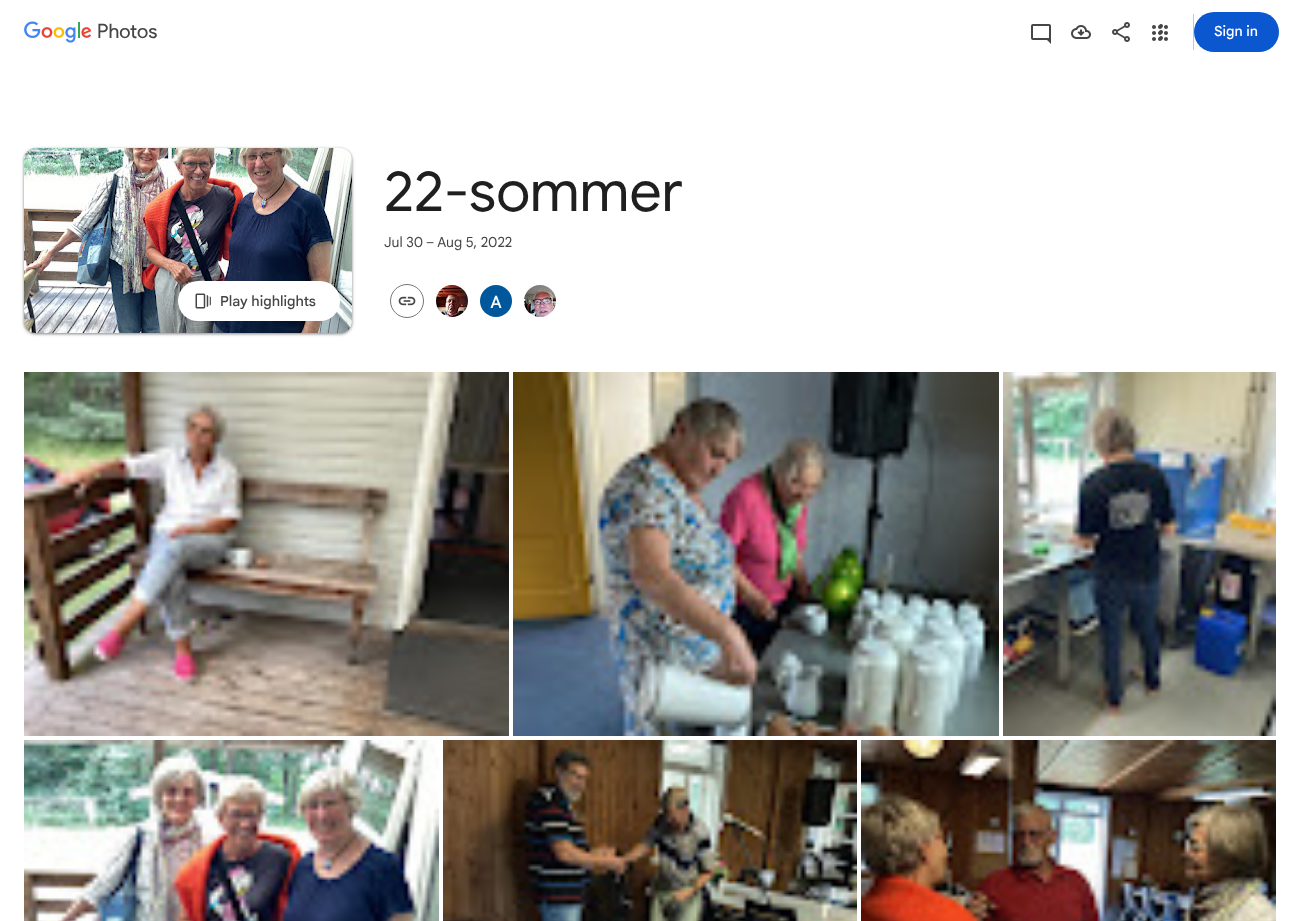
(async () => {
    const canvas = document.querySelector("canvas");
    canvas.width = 1315;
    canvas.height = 921;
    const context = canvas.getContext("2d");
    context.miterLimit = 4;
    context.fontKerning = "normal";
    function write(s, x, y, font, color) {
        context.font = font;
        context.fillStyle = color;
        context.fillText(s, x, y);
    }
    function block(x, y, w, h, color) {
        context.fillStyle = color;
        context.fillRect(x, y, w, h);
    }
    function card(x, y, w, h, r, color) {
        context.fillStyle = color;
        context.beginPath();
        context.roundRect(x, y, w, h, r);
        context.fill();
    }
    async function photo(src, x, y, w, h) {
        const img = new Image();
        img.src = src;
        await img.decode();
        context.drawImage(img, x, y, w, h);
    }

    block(0, 0, 1315, 921, "rgb(255, 255, 255)");
    await photo("media/1.png", 24, 21, 68, 22);
    write("Photos", 97, 38, "20px Product Sans", "rgb(68, 71, 70)");
    await photo("media/2.png", 1031, 24, 20, 20);
    await photo("media/3.png", 1071, 25, 20, 14);
    await photo("media/4.png", 1112, 22, 18, 20);
    await photo("media/5.png", 1159, 24, 4, 16);
    block(1193, 14, 1, 36, "rgb(196, 199, 197)");
    write("22-sommer", 384, 211, "57px Google Sans", "rgb(31, 31, 31)");
    write("Jul 30 – Aug 5, 2022", 384, 247, "14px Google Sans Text", "rgb(68, 71, 70)");
    context.beginPath();
    context.arc(407, 301, 16.5, 0, Math.PI * 2);
    context.strokeStyle = "rgb(116, 119, 117)";
    context.stroke();
    await photo("media/6.png", 398, 296, 18, 10);
    await photo("media/7.png", 436, 285, 32, 32);
    await photo("media/8.png", 480, 285, 32, 32);
    await photo("media/9.png", 524, 285, 32, 32);
    context.fillStyle = "rgba(0, 0, 0, 0.15)";
    context.filter = "blur(1.5px)";
    context.beginPath();
    context.roundRect(23, 148, 330, 187, 13);
    context.fill();
    context.filter = "none";
    context.fillStyle = "rgba(0, 0, 0, 0.3)";
    context.filter = "blur(1px)";
    context.beginPath();
    context.roundRect(24, 149, 328, 185, 12);
    context.fill();
    context.filter = "none";
    await photo("media/10.png", 24, 148, 328, 185);
    card(178, 281, 162, 40, 20, "rgb(255, 255, 255)");
    await photo("media/11.png", 195, 293, 16, 16);
    write("Play highlights", 220, 306, "500 14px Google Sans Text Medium", "rgb(68, 71, 70)");
    await photo("media/12.png", 24, 372, 485, 364);
    await photo("media/13.png", 513, 372, 486, 364);
    await photo("media/14.png", 1003, 372, 273, 364);
    await photo("media/15.png", 24, 740, 415, 181);
    await photo("media/16.png", 443, 740, 414, 181);
    await photo("media/17.png", 861, 740, 415, 181);
    await photo("media/18.png", 1152, 25, 16, 16);
    card(1194, 12, 85, 40, 20, "rgb(11, 87, 208)");
    write("Sign in", 1214, 36, "500 14px Google Sans Text Medium", "rgb(255, 255, 255)");
})();
